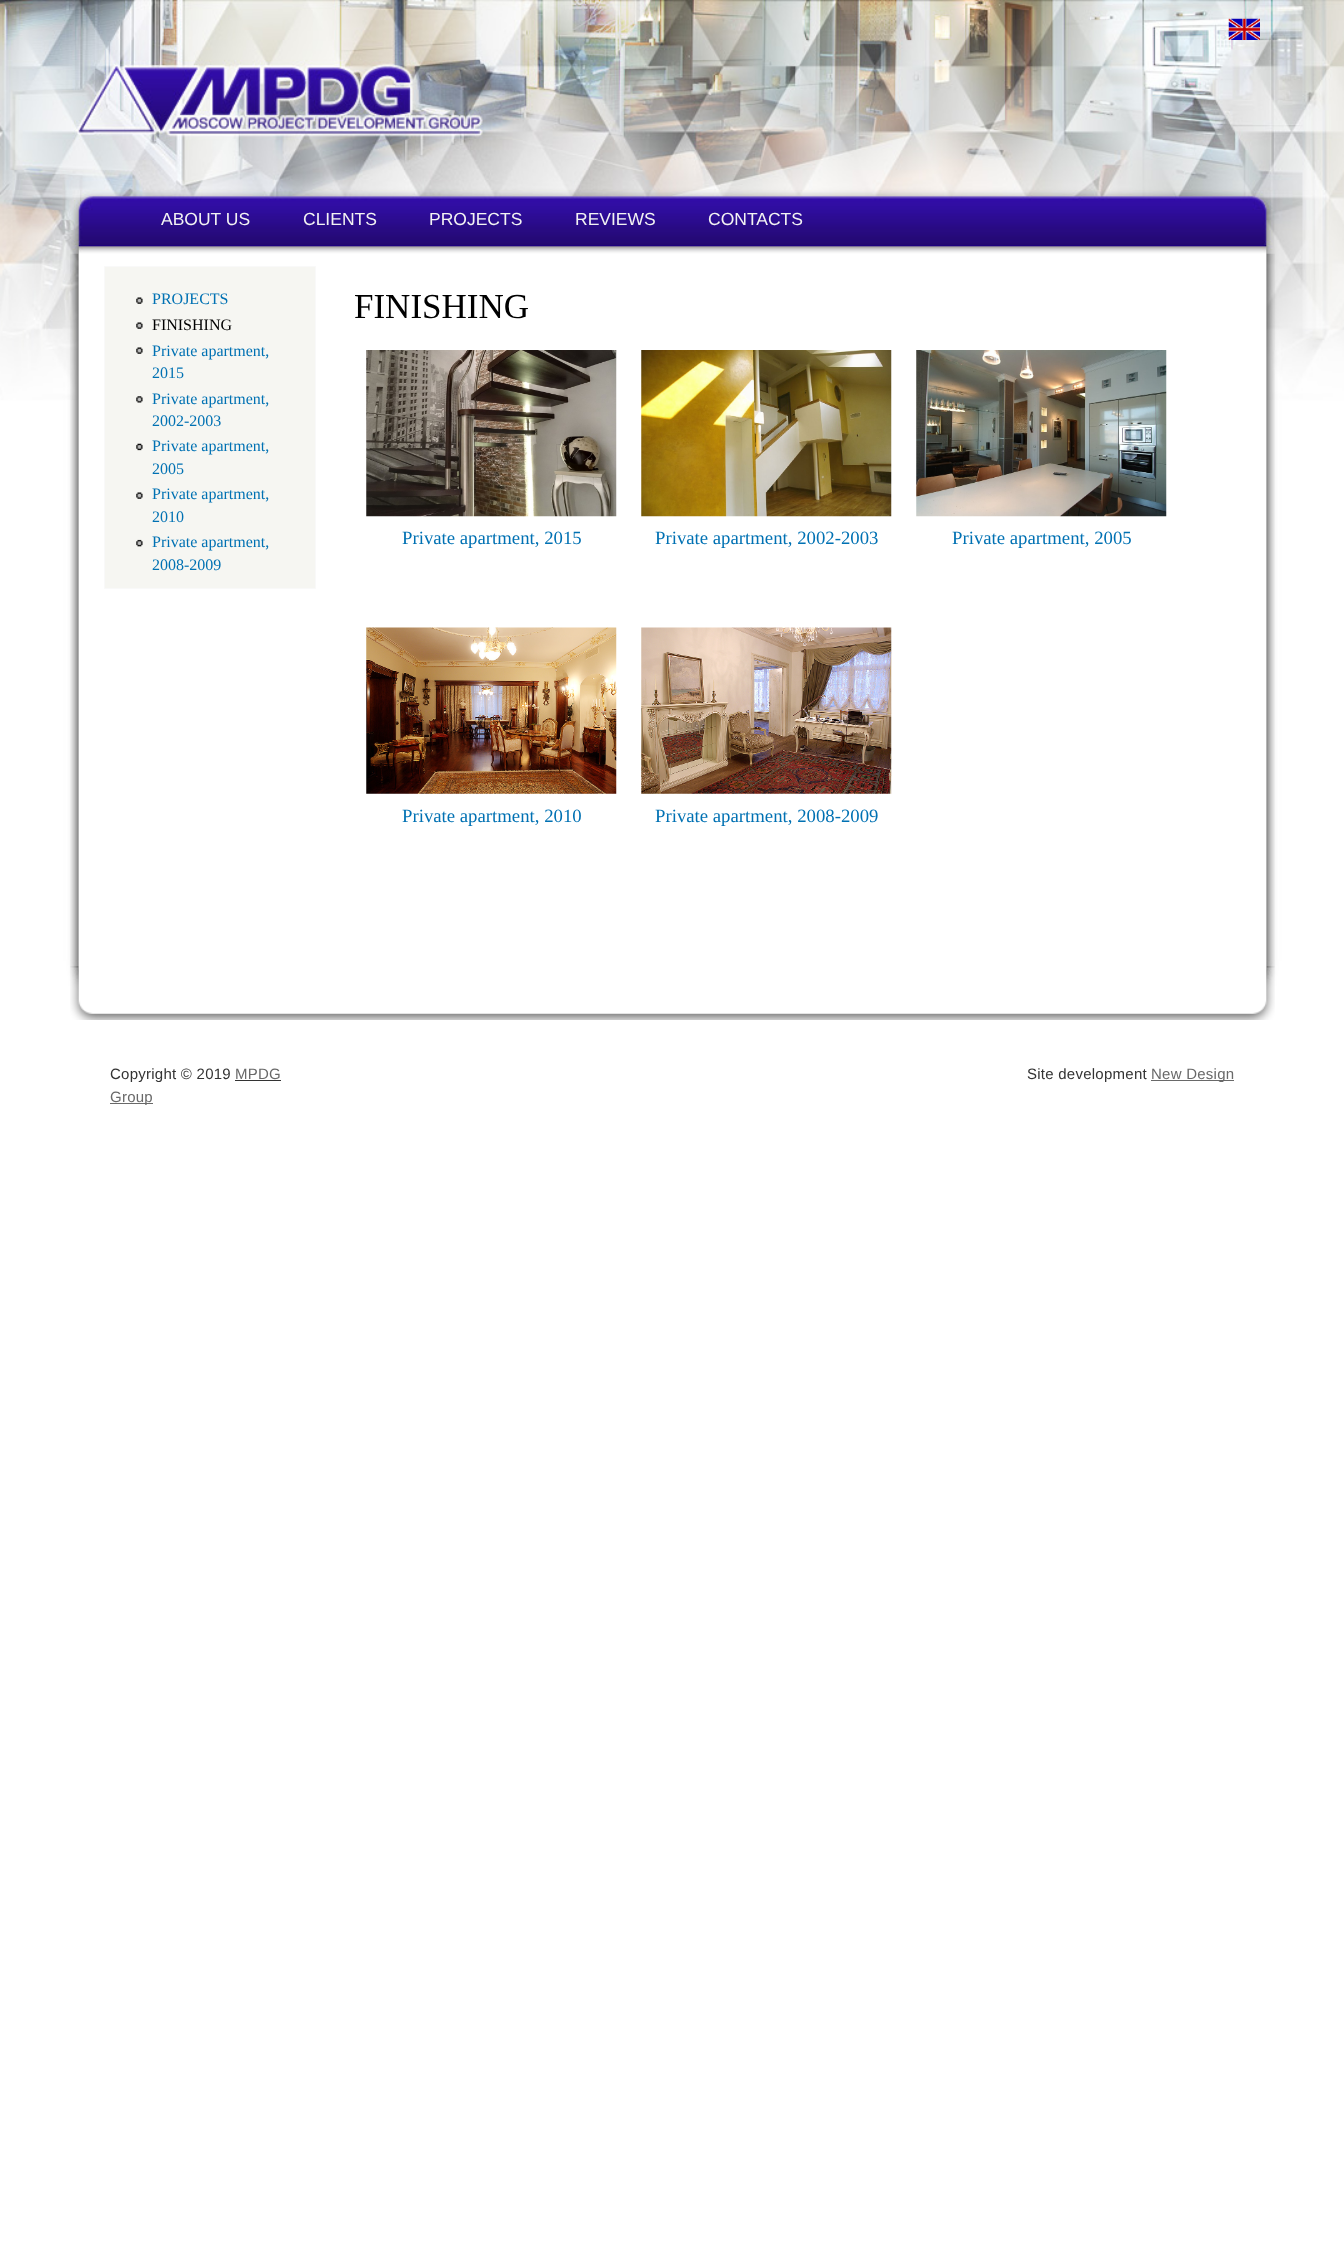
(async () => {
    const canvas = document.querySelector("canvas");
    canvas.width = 1344;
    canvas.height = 2245;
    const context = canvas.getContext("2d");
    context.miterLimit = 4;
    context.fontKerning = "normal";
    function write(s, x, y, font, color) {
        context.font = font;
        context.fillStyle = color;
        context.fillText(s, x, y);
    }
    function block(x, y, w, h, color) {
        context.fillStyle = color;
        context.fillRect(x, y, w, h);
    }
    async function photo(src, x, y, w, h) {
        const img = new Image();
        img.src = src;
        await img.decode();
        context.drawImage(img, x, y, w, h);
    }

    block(0, 0, 1344, 2245, "rgb(255, 255, 255)");
    await photo("media/1.png", 0, 0, 1344, 992);
    await photo("media/2.png", 1228, 18, 32, 22);
    write("ABOUT US", 161, 225, "17.5px Liberation Sans", "rgb(243, 243, 243)");
    write("CLIENTS", 303, 225, "17.5px Liberation Sans", "rgb(243, 243, 243)");
    write("PROJECTS", 429, 225, "17.5px Liberation Sans", "rgb(243, 243, 243)");
    write("REVIEWS", 575, 225, "17.5px Liberation Sans", "rgb(243, 243, 243)");
    write("CONTACTS", 708, 225, "17.5px Liberation Sans", "rgb(243, 243, 243)");
    await photo("media/3.png", 70, 253, 1205, 715);
    context.fillStyle = "rgb(246, 246, 242)";
    context.beginPath();
    context.rect(104.5, 266.5, 211, 322);
    context.fill();
    context.strokeStyle = "rgb(249, 249, 249)";
    context.stroke();
    await photo("media/4.png", 136, 297, 7, 7);
    write("PROJECTS", 152, 304, "16px Liberation Serif", "rgb(0, 113, 179)");
    await photo("media/4.png", 136, 322, 7, 7);
    write("FINISHING", 152, 330, "16px Liberation Serif", "rgb(0, 0, 0)");
    await photo("media/4.png", 136, 347, 7, 7);
    write("Private apartment,", 152, 356, "16px Liberation Serif", "rgb(0, 113, 179)");
    write("2015", 152, 378, "16px Liberation Serif", "rgb(0, 113, 179)");
    await photo("media/5.png", 136, 396, 7, 7);
    write("Private apartment,", 152, 404, "16px Liberation Serif", "rgb(0, 113, 179)");
    write("2002-2003", 152, 426, "16px Liberation Serif", "rgb(0, 113, 179)");
    await photo("media/6.png", 136, 443, 7, 8);
    write("Private apartment,", 152, 451, "16px Liberation Serif", "rgb(0, 113, 179)");
    write("2005", 152, 474, "16px Liberation Serif", "rgb(0, 113, 179)");
    await photo("media/4.png", 136, 492, 7, 7);
    write("Private apartment,", 152, 499, "16px Liberation Serif", "rgb(0, 113, 179)");
    write("2010", 152, 522, "16px Liberation Serif", "rgb(0, 113, 179)");
    await photo("media/7.png", 136, 539, 7, 8);
    write("Private apartment,", 152, 547, "16px Liberation Serif", "rgb(0, 113, 179)");
    write("2008-2009", 152, 570, "16px Liberation Serif", "rgb(0, 113, 179)");
    write("FINISHING", 354, 318, "35px Liberation Serif", "rgb(0, 0, 0)");
    await photo("media/8.png", 366, 350, 251, 167);
    write("Private apartment, 2015", 402, 544, "18.75px Liberation Serif", "rgb(0, 113, 179)");
    await photo("media/9.png", 641, 350, 251, 167);
    write("Private apartment, 2002-2003", 655, 544, "18.75px Liberation Serif", "rgb(0, 113, 179)");
    await photo("media/10.png", 916, 350, 251, 167);
    write("Private apartment, 2005", 952, 544, "18.75px Liberation Serif", "rgb(0, 113, 179)");
    await photo("media/11.png", 366, 627, 251, 167);
    write("Private apartment, 2010", 402, 822, "18.75px Liberation Serif", "rgb(0, 113, 179)");
    await photo("media/12.png", 641, 627, 251, 167);
    write("Private apartment, 2008-2009", 655, 822, "18.75px Liberation Serif", "rgb(0, 113, 179)");
    await photo("media/13.png", 70, 966, 1205, 54);
    context.letterSpacing = "0.25px";
    write("Copyright © 2019", 110, 1079, "15px Liberation Sans", "rgb(51, 51, 51)");
    write("MPDG", 235, 1079, "15px Liberation Sans", "rgb(105, 105, 105)");
    block(235, 1080, 46, 1, "rgb(51, 51, 51)");
    write("Site development", 1027, 1079, "15px Liberation Sans", "rgb(51, 51, 51)");
    block(1151, 1080, 83, 1, "rgb(105, 105, 105)");
    write("New Design", 1151, 1079, "15px Liberation Sans", "rgb(105, 105, 105)");
    block(110, 1103, 43, 1, "rgb(105, 105, 105)");
    write("Group", 110, 1102, "15px Liberation Sans", "rgb(105, 105, 105)");
})();
